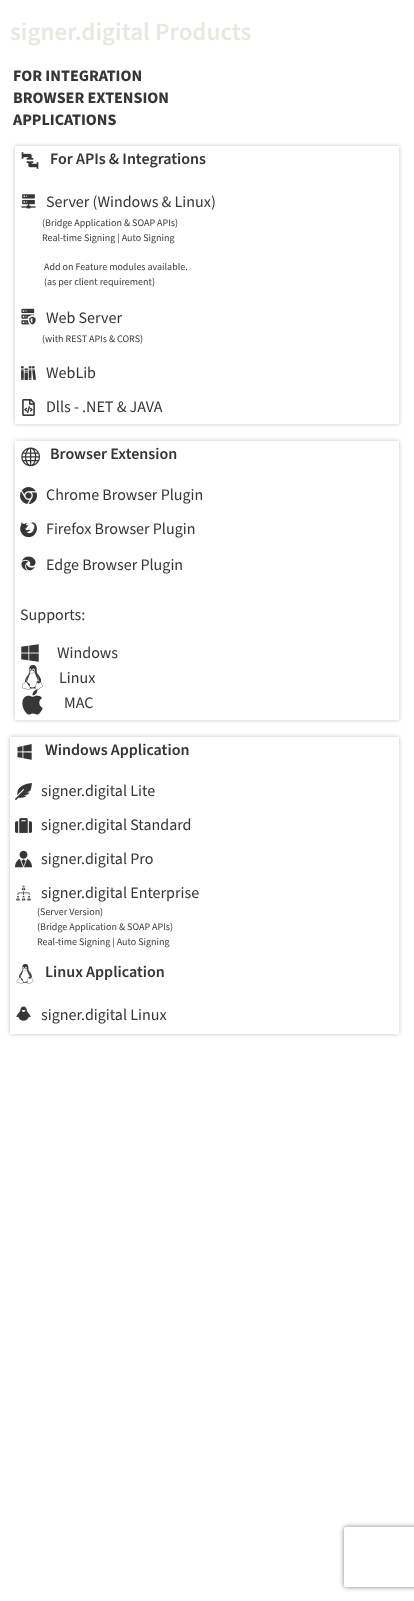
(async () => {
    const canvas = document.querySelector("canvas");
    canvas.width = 414;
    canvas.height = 1601;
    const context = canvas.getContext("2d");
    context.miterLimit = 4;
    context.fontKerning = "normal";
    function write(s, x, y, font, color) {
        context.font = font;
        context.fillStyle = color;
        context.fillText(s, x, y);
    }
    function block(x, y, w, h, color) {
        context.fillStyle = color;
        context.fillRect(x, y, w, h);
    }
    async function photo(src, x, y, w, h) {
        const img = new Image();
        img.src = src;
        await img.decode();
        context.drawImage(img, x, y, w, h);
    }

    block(0, 0, 414, 1601, "rgb(255, 255, 255)");
    write("signer.digital Products", 10, 40, "600 25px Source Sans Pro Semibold", "rgb(231, 233, 225)");
    write("FOR INTEGRATION", 13, 81, "bold 16px Source Sans Pro", "rgb(54, 54, 54)");
    write("BROWSER EXTENSION", 13, 103, "bold 16px Source Sans Pro", "rgb(54, 54, 54)");
    write("APPLICATIONS", 13, 125, "bold 16px Source Sans Pro", "rgb(54, 54, 54)");
    context.save();
    context.beginPath();
    context.moveTo(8, 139);
    context.lineTo(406, 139);
    context.lineTo(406, 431);
    context.lineTo(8, 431);
    context.closePath();
    context.moveTo(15, 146);
    context.lineTo(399, 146);
    context.lineTo(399, 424);
    context.lineTo(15, 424);
    context.closePath();
    context.clip("evenodd");
    context.fillStyle = "rgba(0, 0, 0, 0.23)";
    context.filter = "blur(2px)";
    context.beginPath();
    context.rect(15, 146, 384, 278);
    context.fill();
    context.filter = "none";
    context.restore();
    await photo("media/1.png", 21, 152, 18, 17);
    write("For APIs & Integrations", 50, 164, "600 16px Source Sans Pro Semibold", "rgb(54, 54, 54)");
    await photo("media/2.png", 21, 194, 15, 15);
    write("Server (Windows & Linux)", 46, 207, "16px Source Sans Pro", "rgb(54, 54, 54)");
    write("(Bridge Application & SOAP APIs)", 42, 226, "10px Source Sans Pro", "rgb(60, 58, 58)");
    write("Real-time Signing | Auto Signing", 42, 241, "10px Source Sans Pro", "rgb(60, 58, 58)");
    write("Add on Feature modules available.", 44, 270, "10px Source Sans Pro", "rgb(60, 58, 58)");
    write("(as per client requirement)", 44, 285, "10px Source Sans Pro", "rgb(60, 58, 58)");
    await photo("media/3.png", 21, 308, 15, 17);
    write("Web Server", 46, 323, "16px Source Sans Pro", "rgb(54, 54, 54)");
    write("(with REST APIs & CORS)", 42, 342, "10px Source Sans Pro", "rgb(60, 58, 58)");
    await photo("media/4.png", 21, 366, 15, 14);
    write("WebLib", 46, 378, "16px Source Sans Pro", "rgb(54, 54, 54)");
    await photo("media/5.png", 22, 399, 13, 17);
    write("Dlls - .NET & JAVA", 46, 412, "16px Source Sans Pro", "rgb(54, 54, 54)");
    context.save();
    context.beginPath();
    context.moveTo(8, 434);
    context.lineTo(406, 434);
    context.lineTo(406, 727);
    context.lineTo(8, 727);
    context.closePath();
    context.moveTo(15, 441);
    context.lineTo(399, 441);
    context.lineTo(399, 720);
    context.lineTo(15, 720);
    context.closePath();
    context.clip("evenodd");
    context.fillStyle = "rgba(0, 0, 0, 0.23)";
    context.filter = "blur(2px)";
    context.beginPath();
    context.rect(15, 441, 384, 279);
    context.fill();
    context.filter = "none";
    context.restore();
    await photo("media/6.png", 21, 447, 19, 20);
    write("Browser Extension", 50, 459, "600 16px Source Sans Pro Semibold", "rgb(54, 54, 54)");
    await photo("media/7.png", 20, 487, 17, 17);
    write("Chrome Browser Plugin", 46, 500, "16px Source Sans Pro", "rgb(54, 54, 54)");
    await photo("media/8.png", 20, 522, 17, 16);
    write("Firefox Browser Plugin", 46, 534, "16px Source Sans Pro", "rgb(54, 54, 54)");
    await photo("media/9.png", 21, 556, 15, 15);
    write("Edge Browser Plugin", 46, 570, "16px Source Sans Pro", "rgb(54, 54, 54)");
    write("Supports:", 20, 620, "16px Source Sans Pro", "rgb(54, 54, 54)");
    await photo("media/10.png", 21, 644, 18, 18);
    write("Windows", 57, 658, "16px Source Sans Pro", "rgb(54, 54, 54)");
    await photo("media/11.png", 22, 665, 21, 25);
    write("Linux", 59, 683, "16px Source Sans Pro", "rgb(54, 54, 54)");
    await photo("media/12.png", 22, 689, 21, 26);
    write("MAC", 64, 708, "16px Source Sans Pro", "rgb(54, 54, 54)");
    context.save();
    context.beginPath();
    context.moveTo(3, 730);
    context.lineTo(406, 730);
    context.lineTo(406, 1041);
    context.lineTo(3, 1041);
    context.closePath();
    context.moveTo(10, 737);
    context.lineTo(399, 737);
    context.lineTo(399, 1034);
    context.lineTo(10, 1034);
    context.closePath();
    context.clip("evenodd");
    context.fillStyle = "rgba(0, 0, 0, 0.23)";
    context.filter = "blur(2px)";
    context.beginPath();
    context.rect(10, 737, 389, 297);
    context.fill();
    context.filter = "none";
    context.restore();
    await photo("media/13.png", 17, 744, 15, 16);
    write("Windows Application", 45, 755, "600 16px Source Sans Pro Semibold", "rgb(54, 54, 54)");
    await photo("media/14.png", 15, 783, 17, 17);
    write("signer.digital Lite", 41, 796, "16px Source Sans Pro", "rgb(54, 54, 54)");
    await photo("media/15.png", 15, 818, 17, 15);
    write("signer.digital Standard", 41, 830, "16px Source Sans Pro", "rgb(54, 54, 54)");
    await photo("media/16.png", 15, 850, 17, 18);
    write("signer.digital Pro", 41, 864, "16px Source Sans Pro", "rgb(54, 54, 54)");
    await photo("media/17.png", 16, 885, 15, 16);
    write("signer.digital Enterprise", 41, 898, "16px Source Sans Pro", "rgb(54, 54, 54)");
    write("(Server Version)", 37, 915, "10px Source Sans Pro", "rgb(60, 58, 58)");
    write("(Bridge Application & SOAP APIs)", 37, 930, "10px Source Sans Pro", "rgb(60, 58, 58)");
    write("Real-time Signing | Auto Signing", 37, 945, "10px Source Sans Pro", "rgb(60, 58, 58)");
    await photo("media/18.png", 16, 964, 18, 20);
    write("Linux Application", 45, 977, "600 16px Source Sans Pro Semibold", "rgb(54, 54, 54)");
    await photo("media/19.png", 16, 1006, 15, 15);
    write("signer.digital Linux", 41, 1020, "16px Source Sans Pro", "rgb(54, 54, 54)");
    context.save();
    context.beginPath();
    context.moveTo(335, 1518);
    context.lineTo(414, 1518);
    context.lineTo(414, 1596);
    context.lineTo(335, 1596);
    context.closePath();
    context.moveTo(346, 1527);
    context.lineTo(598, 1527);
    context.bezierCurveTo(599, 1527, 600, 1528, 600, 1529);
    context.lineTo(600, 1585);
    context.bezierCurveTo(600, 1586, 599, 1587, 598, 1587);
    context.lineTo(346, 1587);
    context.bezierCurveTo(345, 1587, 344, 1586, 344, 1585);
    context.lineTo(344, 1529);
    context.bezierCurveTo(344, 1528, 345, 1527, 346, 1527);
    context.closePath();
    context.clip("evenodd");
    context.fillStyle = "rgb(128, 128, 128)";
    context.filter = "blur(2.5px)";
    context.beginPath();
    context.roundRect(344, 1527, 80, 60, 2);
    context.fill();
    context.filter = "none";
    context.restore();
})();
